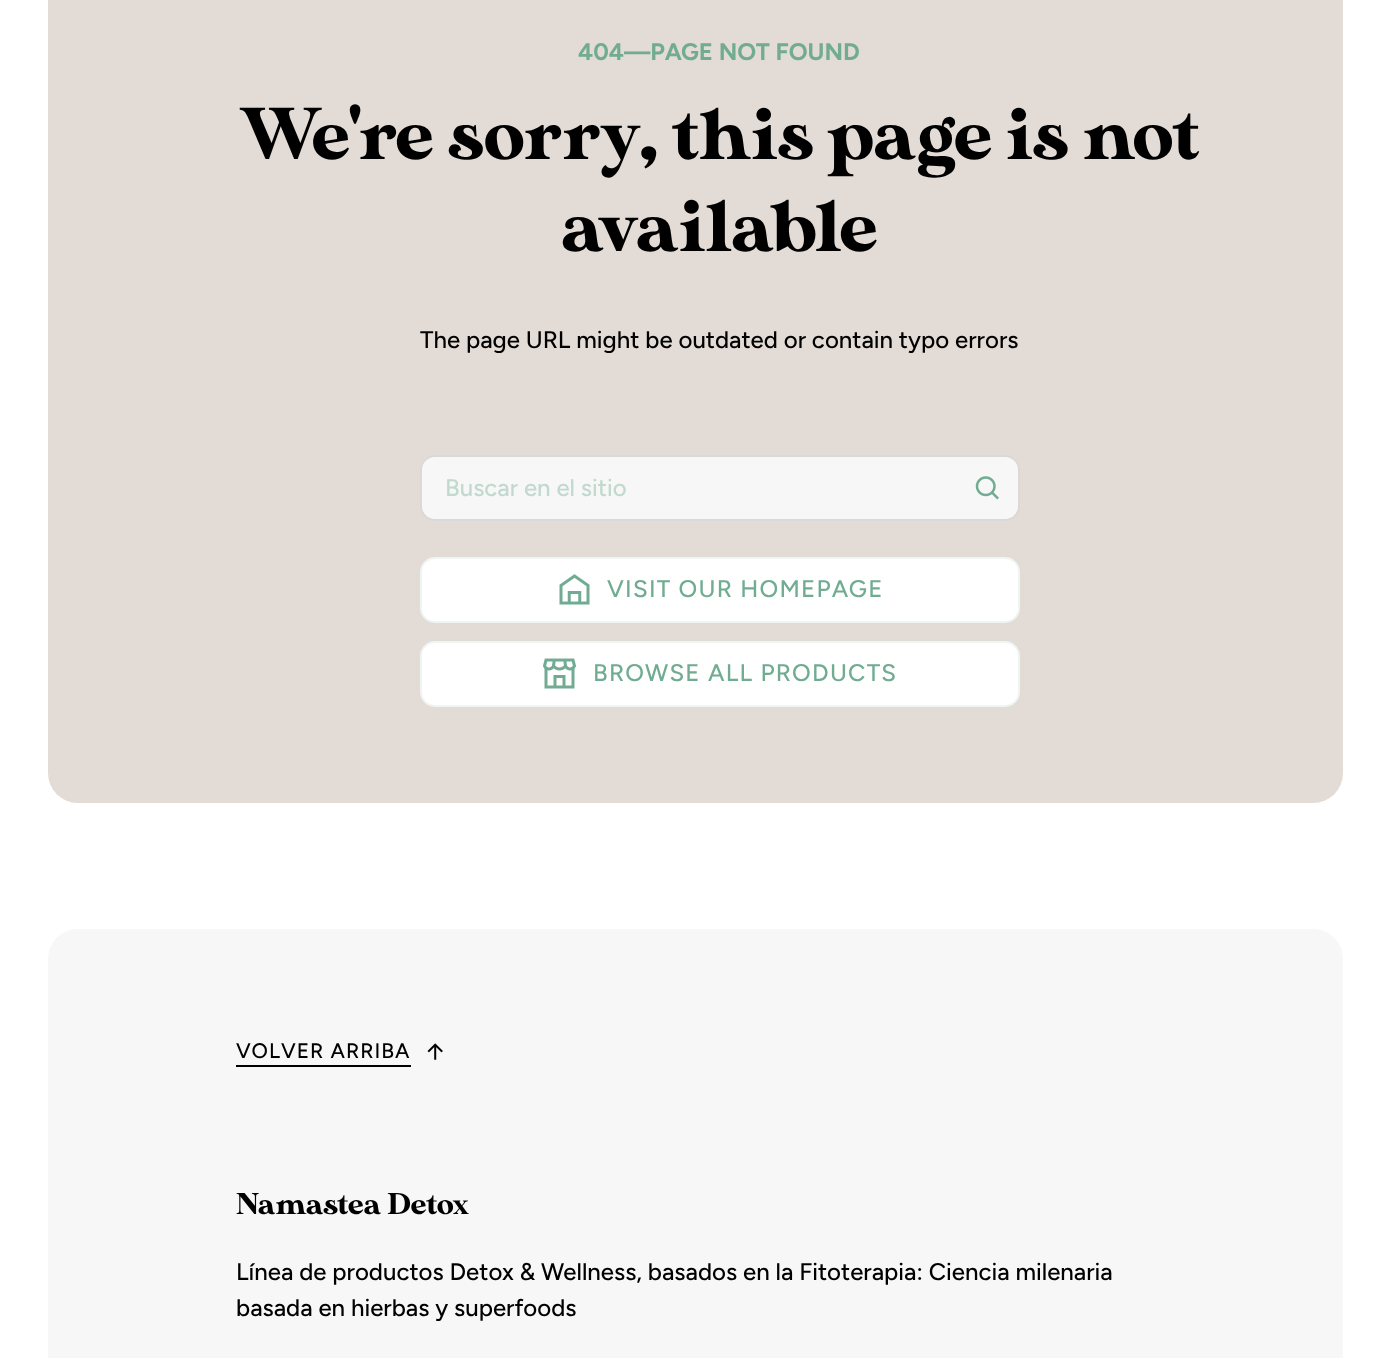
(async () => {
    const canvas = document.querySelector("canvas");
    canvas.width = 1390;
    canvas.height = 1358;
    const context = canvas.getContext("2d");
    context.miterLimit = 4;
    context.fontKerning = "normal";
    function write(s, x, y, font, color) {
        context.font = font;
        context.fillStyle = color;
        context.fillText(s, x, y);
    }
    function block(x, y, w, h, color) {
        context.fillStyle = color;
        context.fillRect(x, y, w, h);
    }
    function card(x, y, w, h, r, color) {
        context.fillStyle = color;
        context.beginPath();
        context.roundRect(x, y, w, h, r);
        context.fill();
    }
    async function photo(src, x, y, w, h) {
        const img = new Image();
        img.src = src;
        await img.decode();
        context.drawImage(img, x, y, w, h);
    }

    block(0, 0, 1390, 1358, "rgb(255, 255, 255)");
    card(48, -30, 1295, 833, 30, "rgb(227, 219, 213)");
    write("404—PAGE NOT FOUND", 578, 60, "bold 24px Figtree", "rgb(113, 172, 146)");
    write("We're sorry, this page is not", 239, 159, "73.25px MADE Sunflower", "rgb(0, 0, 0)");
    write("available", 562, 251, "73.25px MADE Sunflower", "rgb(0, 0, 0)");
    write("The page URL might be outdated or contain typo errors", 420, 348, "500 24px Figtree", "rgb(0, 0, 0)");
    card(420, 455, 600, 66, 15, "rgb(247, 247, 247)");
    context.beginPath();
    context.roundRect(421, 456, 598, 64, 14);
    context.strokeStyle = "rgba(0, 0, 0, 0.12)";
    context.lineWidth = 2;
    context.stroke();
    write("Buscar en el sitio", 445, 496, "500 24px Figtree", "rgb(193, 217, 207)");
    await photo("media/1.png", 975, 476, 24, 24);
    card(420, 557, 600, 66, 15, "rgb(255, 255, 255)");
    context.beginPath();
    context.roundRect(421, 558, 598, 64, 14);
    context.strokeStyle = "rgba(113, 172, 146, 0.12)";
    context.stroke();
    await photo("media/2.png", 559, 574, 31, 31);
    context.letterSpacing = "1.25px";
    write("VISIT OUR HOMEPAGE", 607, 597, "500 24px Figtree", "rgb(113, 172, 146)");
    card(420, 641, 600, 66, 15, "rgb(255, 255, 255)");
    context.beginPath();
    context.roundRect(421, 642, 598, 64, 14);
    context.stroke();
    await photo("media/3.png", 543, 658, 33, 31);
    write("BROWSE ALL PRODUCTS", 593, 681, "500 24px Figtree", "rgb(113, 172, 146)");
    card(48, 929, 1295, 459, 30, "rgb(247, 247, 247)");
    context.letterSpacing = "1px";
    write("VOLVER ARRIBA", 236, 1058, "500 21px Figtree", "rgb(0, 0, 0)");
    block(236, 1065, 175, 2, "rgb(0, 0, 0)");
    await photo("media/4.png", 427, 1043, 16, 17);
    context.letterSpacing = "0px";
    write("Namastea Detox", 236, 1214, "30px MADE Sunflower", "rgb(0, 0, 0)");
    write("Línea de productos Detox & Wellness, basados en la Fitoterapia: Ciencia milenaria", 236, 1280, "500 24px Figtree", "rgb(0, 0, 0)");
    write("basada en hierbas y superfoods", 236, 1316, "500 24px Figtree", "rgb(0, 0, 0)");
})();
